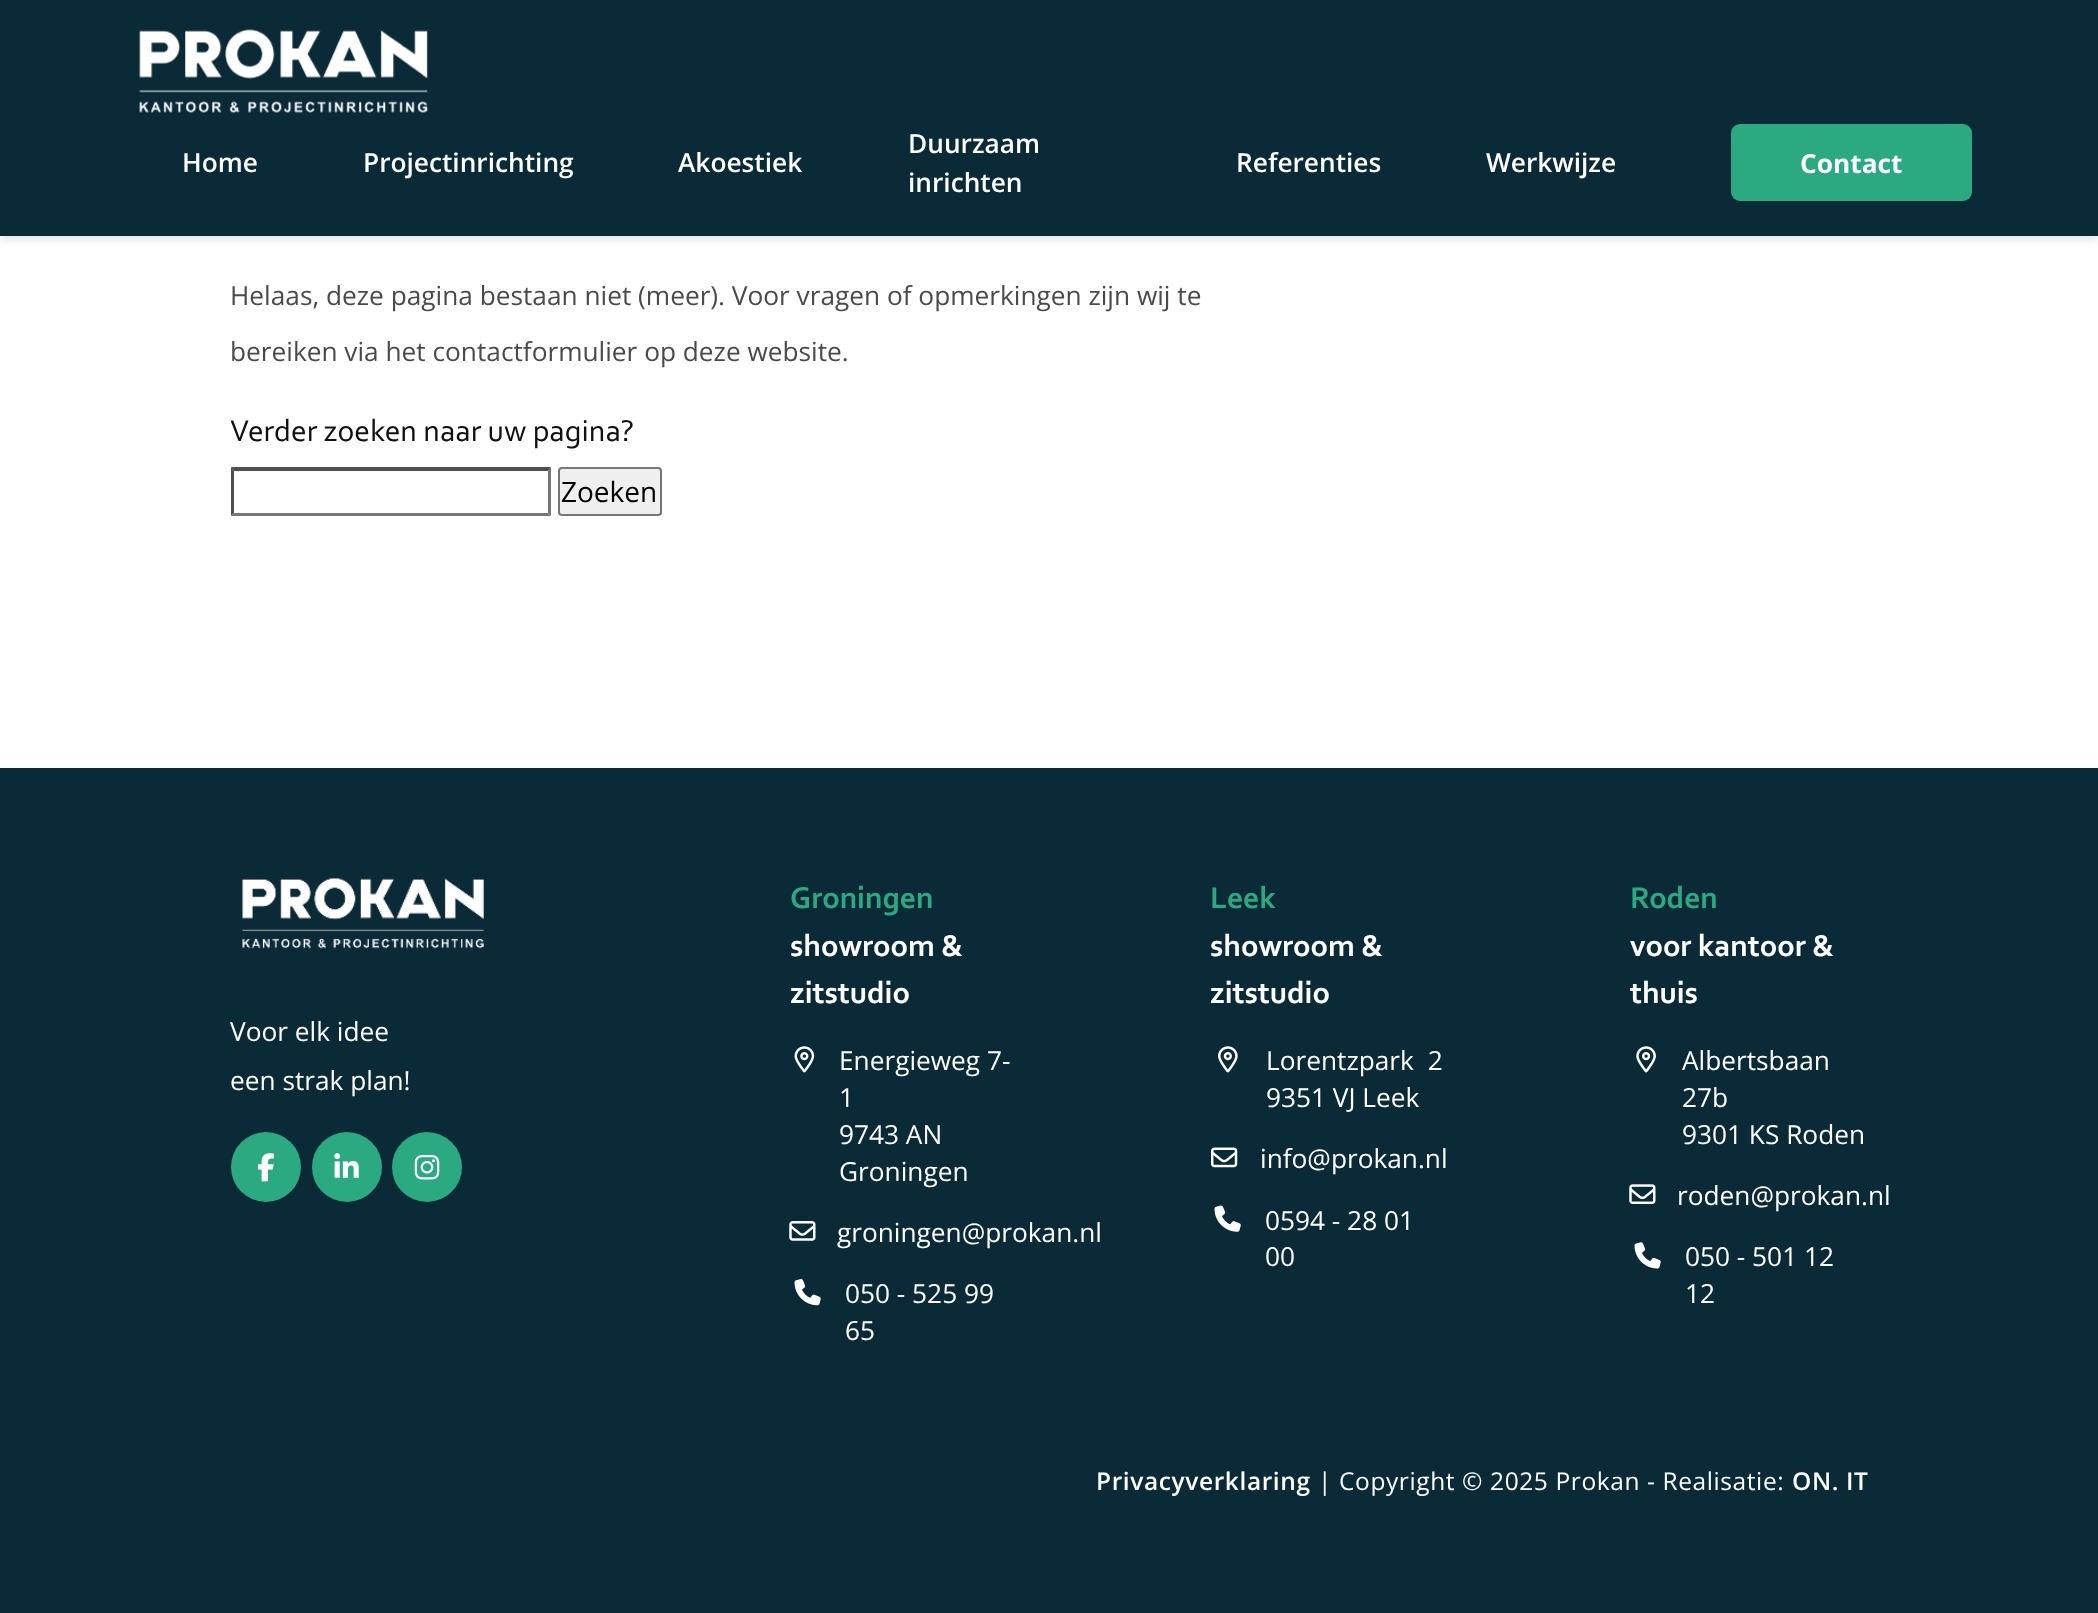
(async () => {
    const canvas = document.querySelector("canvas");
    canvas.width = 2098;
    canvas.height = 1613;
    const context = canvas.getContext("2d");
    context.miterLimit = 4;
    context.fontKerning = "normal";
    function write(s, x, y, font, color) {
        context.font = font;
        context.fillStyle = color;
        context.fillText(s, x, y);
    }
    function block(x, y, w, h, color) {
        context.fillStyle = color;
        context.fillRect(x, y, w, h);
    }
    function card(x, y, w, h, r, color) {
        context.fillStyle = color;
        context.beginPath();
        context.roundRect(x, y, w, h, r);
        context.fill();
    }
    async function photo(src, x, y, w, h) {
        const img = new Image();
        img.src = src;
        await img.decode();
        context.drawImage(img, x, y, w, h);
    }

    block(0, 0, 2098, 1613, "rgb(255, 255, 255)");
    context.fillStyle = "rgba(0, 0, 0, 0.1)";
    context.filter = "blur(4.5px)";
    context.beginPath();
    context.rect(0, -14, 2098, 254);
    context.fill();
    context.filter = "none";
    block(0, 0, 2098, 236, "rgb(10, 42, 56)");
    await photo("media/1.png", 139, 29, 289, 84);
    write("Home", 182, 172, "600 26.25px Open Sans", "rgb(255, 255, 255)");
    write("Projectinrichting", 363, 172, "600 26.25px Open Sans", "rgb(255, 255, 255)");
    write("Akoestiek", 678, 172, "600 26.25px Open Sans", "rgb(255, 255, 255)");
    write("Duurzaam", 908, 153, "600 26.25px Open Sans", "rgb(255, 255, 255)");
    write("inrichten", 908, 192, "600 26.25px Open Sans", "rgb(255, 255, 255)");
    write("Referenties", 1236, 172, "600 26.25px Open Sans", "rgb(255, 255, 255)");
    write("Werkwijze", 1486, 172, "600 26.25px Open Sans", "rgb(255, 255, 255)");
    card(1731, 124, 241, 77, 9, "rgb(43, 170, 130)");
    write("Contact", 1800, 173, "bold 26.25px Open Sans", "rgb(255, 255, 255)");
    write("Helaas, deze pagina bestaan niet (meer). Voor vragen of opmerkingen zijn wij te", 230, 305, "26.25px Open Sans", "rgb(74, 74, 74)");
    write("bereiken via het contactformulier op deze website.", 230, 361, "26.25px Open Sans", "rgb(74, 74, 74)");
    write("Verder zoeken naar uw pagina?", 230, 441, "31.5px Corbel", "rgb(16, 16, 16)");
    context.fillStyle = "rgb(79, 79, 79)";
    context.beginPath();
    context.moveTo(231, 467);
    context.lineTo(551, 467);
    context.lineTo(548, 471);
    context.lineTo(234, 471);
    context.closePath();
    context.fill();
    context.fillStyle = "rgb(118, 118, 118)";
    context.beginPath();
    context.moveTo(551, 467);
    context.lineTo(551, 516);
    context.lineTo(548, 513);
    context.lineTo(548, 471);
    context.closePath();
    context.fill();
    context.beginPath();
    context.moveTo(551, 516);
    context.lineTo(231, 516);
    context.lineTo(234, 513);
    context.lineTo(548, 513);
    context.closePath();
    context.fill();
    context.fillStyle = "rgb(79, 79, 79)";
    context.beginPath();
    context.moveTo(231, 516);
    context.lineTo(231, 467);
    context.lineTo(234, 471);
    context.lineTo(234, 513);
    context.closePath();
    context.fill();
    context.fillStyle = "rgb(239, 239, 239)";
    context.beginPath();
    context.roundRect(559, 468, 102, 47, 3);
    context.fill();
    context.strokeStyle = "rgb(118, 118, 118)";
    context.lineWidth = 2;
    context.stroke();
    write("Zoeken", 561, 502, "28px Open Sans", "rgb(0, 0, 0)");
    block(0, 768, 2098, 845, "rgb(10, 42, 56)");
    await photo("media/2.png", 242, 878, 242, 71);
    write("Voor elk idee", 230, 1041, "26.25px Open Sans", "rgb(255, 255, 255)");
    write("een strak plan!", 230, 1090, "26.25px Open Sans", "rgb(255, 255, 255)");
    context.fillStyle = "rgb(43, 170, 130)";
    context.beginPath();
    context.arc(266, 1167, 35, 0, Math.PI * 2);
    context.fill();
    await photo("media/3.png", 258, 1153, 16, 29);
    context.beginPath();
    context.arc(347, 1167, 35, 0, Math.PI * 2);
    context.fill();
    await photo("media/4.png", 334, 1153, 25, 25);
    context.beginPath();
    context.arc(427, 1167, 35, 0, Math.PI * 2);
    context.fill();
    await photo("media/5.png", 414, 1155, 26, 25);
    write("Groningen", 790, 908, "bold 31.5px Corbel", "rgb(43, 170, 130)");
    write("showroom &", 790, 956, "bold 31.5px Corbel", "rgb(255, 255, 255)");
    write("zitstudio", 790, 1003, "bold 31.5px Corbel", "rgb(255, 255, 255)");
    await photo("media/6.png", 794, 1046, 21, 27);
    write("Energieweg 7-", 839, 1070, "26.25px Open Sans", "rgb(255, 255, 255)");
    write("1", 839, 1107, "26.25px Open Sans", "rgb(255, 255, 255)");
    write("9743 AN", 839, 1144, "26.25px Open Sans", "rgb(255, 255, 255)");
    write("Groningen", 839, 1181, "26.25px Open Sans", "rgb(255, 255, 255)");
    await photo("media/7.png", 789, 1221, 27, 20);
    write("groningen@prokan.nl", 837, 1242, "26.25px Open Sans", "rgb(255, 255, 255)");
    await photo("media/8.png", 794, 1279, 27, 27);
    write("050 - 525 99", 845, 1303, "26.25px Open Sans", "rgb(255, 255, 255)");
    write("65", 845, 1340, "26.25px Open Sans", "rgb(255, 255, 255)");
    write("Leek", 1210, 908, "bold 31.5px Corbel", "rgb(43, 170, 130)");
    write("showroom &", 1210, 956, "bold 31.5px Corbel", "rgb(255, 255, 255)");
    write("zitstudio", 1210, 1003, "bold 31.5px Corbel", "rgb(255, 255, 255)");
    await photo("media/9.png", 1218, 1046, 20, 27);
    context.wordSpacing = "7px";
    write("Lorentzpark 2", 1266, 1070, "26.25px Open Sans", "rgb(255, 255, 255)");
    context.wordSpacing = "0px";
    write("9351 VJ Leek", 1266, 1107, "26.25px Open Sans", "rgb(255, 255, 255)");
    await photo("media/10.png", 1211, 1147, 27, 21);
    write("info@prokan.nl", 1260, 1168, "26.25px Open Sans", "rgb(255, 255, 255)");
    await photo("media/11.png", 1214, 1205, 27, 27);
    write("0594 - 28 01", 1265, 1230, "26.25px Open Sans", "rgb(255, 255, 255)");
    write("00", 1265, 1266, "26.25px Open Sans", "rgb(255, 255, 255)");
    write("Roden", 1630, 908, "bold 31.5px Corbel", "rgb(43, 170, 130)");
    write("voor kantoor &", 1630, 956, "bold 31.5px Corbel", "rgb(255, 255, 255)");
    write("thuis", 1630, 1003, "bold 31.5px Corbel", "rgb(255, 255, 255)");
    await photo("media/12.png", 1636, 1046, 20, 27);
    write("Albertsbaan", 1682, 1070, "26.25px Open Sans", "rgb(255, 255, 255)");
    write("27b", 1682, 1107, "26.25px Open Sans", "rgb(255, 255, 255)");
    write("9301 KS Roden", 1682, 1144, "26.25px Open Sans", "rgb(255, 255, 255)");
    await photo("media/13.png", 1629, 1184, 27, 20);
    write("roden@prokan.nl", 1677, 1205, "26.25px Open Sans", "rgb(255, 255, 255)");
    await photo("media/14.png", 1634, 1242, 27, 27);
    write("050 - 501 12", 1685, 1266, "26.25px Open Sans", "rgb(255, 255, 255)");
    write("12", 1685, 1303, "26.25px Open Sans", "rgb(255, 255, 255)");
    context.letterSpacing = "0.6px";
    write("Privacyverklaring", 1096, 1490, "600 24.5px Open Sans", "rgb(255, 255, 255)");
    write("| Copyright © 2025 Prokan - Realisatie:", 1318, 1490, "24.5px Open Sans", "rgb(255, 255, 255)");
    write("ON. IT", 1792, 1490, "600 24.5px Open Sans", "rgb(255, 255, 255)");
})();
